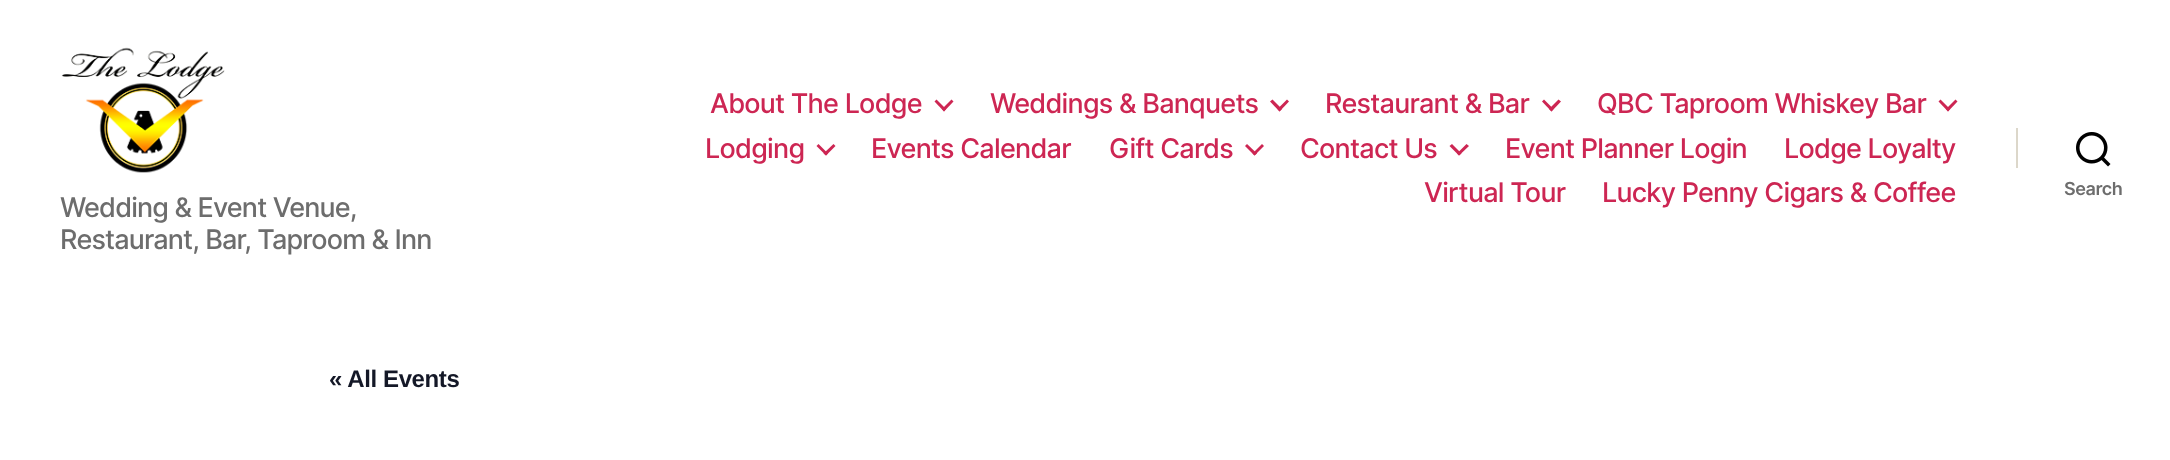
(async () => {
    const canvas = document.querySelector("canvas");
    canvas.width = 2170;
    canvas.height = 460;
    const context = canvas.getContext("2d");
    context.miterLimit = 4;
    context.fontKerning = "normal";
    function write(s, x, y, font, color) {
        context.font = font;
        context.fillStyle = color;
        context.fillText(s, x, y);
    }
    function block(x, y, w, h, color) {
        context.fillStyle = color;
        context.fillRect(x, y, w, h);
    }
    async function photo(src, x, y, w, h) {
        const img = new Image();
        img.src = src;
        await img.decode();
        context.drawImage(img, x, y, w, h);
    }

    block(0, 0, 2170, 460, "rgb(255, 255, 255)");
    context.letterSpacing = "-0.75px";
    write("About The Lodge", 710, 113, "500 27px Inter", "rgb(205, 38, 83)");
    context.beginPath();
    context.moveTo(934.5, 101.5);
    context.lineTo(936.5, 99.5);
    context.lineTo(946, 109);
    context.lineTo(944, 111.5);
    context.closePath();
    context.fill();
    context.beginPath();
    context.moveTo(942, 109);
    context.lineTo(951.5, 99.5);
    context.lineTo(953.5, 101.5);
    context.lineTo(944, 111.5);
    context.closePath();
    context.fill();
    write("Weddings & Banquets", 990, 113, "500 27px Inter", "rgb(205, 38, 83)");
    context.beginPath();
    context.moveTo(1270, 101.5);
    context.lineTo(1272.5, 99.5);
    context.lineTo(1282, 109);
    context.lineTo(1279.5, 111.5);
    context.closePath();
    context.fill();
    context.beginPath();
    context.moveTo(1277.5, 109);
    context.lineTo(1287, 99.5);
    context.lineTo(1289, 101.5);
    context.lineTo(1279.5, 111.5);
    context.closePath();
    context.fill();
    write("Restaurant & Bar", 1325, 113, "500 27px Inter", "rgb(205, 38, 83)");
    context.beginPath();
    context.moveTo(1542, 101.5);
    context.lineTo(1544, 99.5);
    context.lineTo(1553.5, 109);
    context.lineTo(1551.5, 111.5);
    context.closePath();
    context.fill();
    context.beginPath();
    context.moveTo(1549, 109);
    context.lineTo(1558.5, 99.5);
    context.lineTo(1561, 101.5);
    context.lineTo(1551.5, 111.5);
    context.closePath();
    context.fill();
    write("QBC Taproom Whiskey Bar", 1597, 113, "500 27px Inter", "rgb(205, 38, 83)");
    context.beginPath();
    context.moveTo(1938.5, 101.5);
    context.lineTo(1940.5, 99.5);
    context.lineTo(1950, 109);
    context.lineTo(1948, 111.5);
    context.closePath();
    context.fill();
    context.beginPath();
    context.moveTo(1946, 109);
    context.lineTo(1955.5, 99.5);
    context.lineTo(1957.5, 101.5);
    context.lineTo(1948, 111.5);
    context.closePath();
    context.fill();
    write("Lodging", 705, 158, "500 27px Inter", "rgb(205, 38, 83)");
    context.beginPath();
    context.moveTo(816.5, 146);
    context.lineTo(818.5, 144);
    context.lineTo(828, 153.5);
    context.lineTo(826, 155.5);
    context.closePath();
    context.fill();
    context.beginPath();
    context.moveTo(823.5, 153.5);
    context.lineTo(833.5, 144);
    context.lineTo(835.5, 146);
    context.lineTo(826, 155.5);
    context.closePath();
    context.fill();
    write("Events Calendar", 871, 158, "500 27px Inter", "rgb(205, 38, 83)");
    write("Gift Cards", 1109, 158, "500 27px Inter", "rgb(205, 38, 83)");
    context.beginPath();
    context.moveTo(1245, 146);
    context.lineTo(1247, 144);
    context.lineTo(1257, 153.5);
    context.lineTo(1254.5, 155.5);
    context.closePath();
    context.fill();
    context.beginPath();
    context.moveTo(1252.5, 153.5);
    context.lineTo(1262, 144);
    context.lineTo(1264, 146);
    context.lineTo(1254.5, 155.5);
    context.closePath();
    context.fill();
    write("Contact Us", 1300, 158, "500 27px Inter", "rgb(205, 38, 83)");
    context.beginPath();
    context.moveTo(1449.5, 146);
    context.lineTo(1452, 144);
    context.lineTo(1461.5, 153.5);
    context.lineTo(1459, 155.5);
    context.closePath();
    context.fill();
    context.beginPath();
    context.moveTo(1457, 153.5);
    context.lineTo(1466.5, 144);
    context.lineTo(1469, 146);
    context.lineTo(1459, 155.5);
    context.closePath();
    context.fill();
    write("Event Planner Login", 1505, 158, "500 27px Inter", "rgb(205, 38, 83)");
    write("Lodge Loyalty", 1784, 158, "500 27px Inter", "rgb(205, 38, 83)");
    write("Virtual Tour", 1424, 202, "500 27px Inter", "rgb(205, 38, 83)");
    write("Lucky Penny Cigars & Coffee", 1602, 202, "500 27px Inter", "rgb(205, 38, 83)");
    block(2016, 128, 2, 40, "rgb(220, 215, 202)");
    await photo("media/1.png", 2076, 132, 35, 35);
    context.letterSpacing = "-0.4px";
    write("Search", 2064, 195, "600 18px Inter", "rgb(109, 109, 109)");
    await photo("media/2.png", 61, 47, 164, 126);
    context.letterSpacing = "-0.85px";
    write("Wedding & Event Venue,", 60, 217, "500 27px Inter", "rgb(109, 109, 109)");
    write("Restaurant, Bar, Taproom & Inn", 60, 249, "500 27px Inter", "rgb(109, 109, 109)");
    context.letterSpacing = "-0.4px";
    write("« All Events", 329, 387, "bold 24px Liberation Sans", "rgb(20, 24, 39)");
})();
